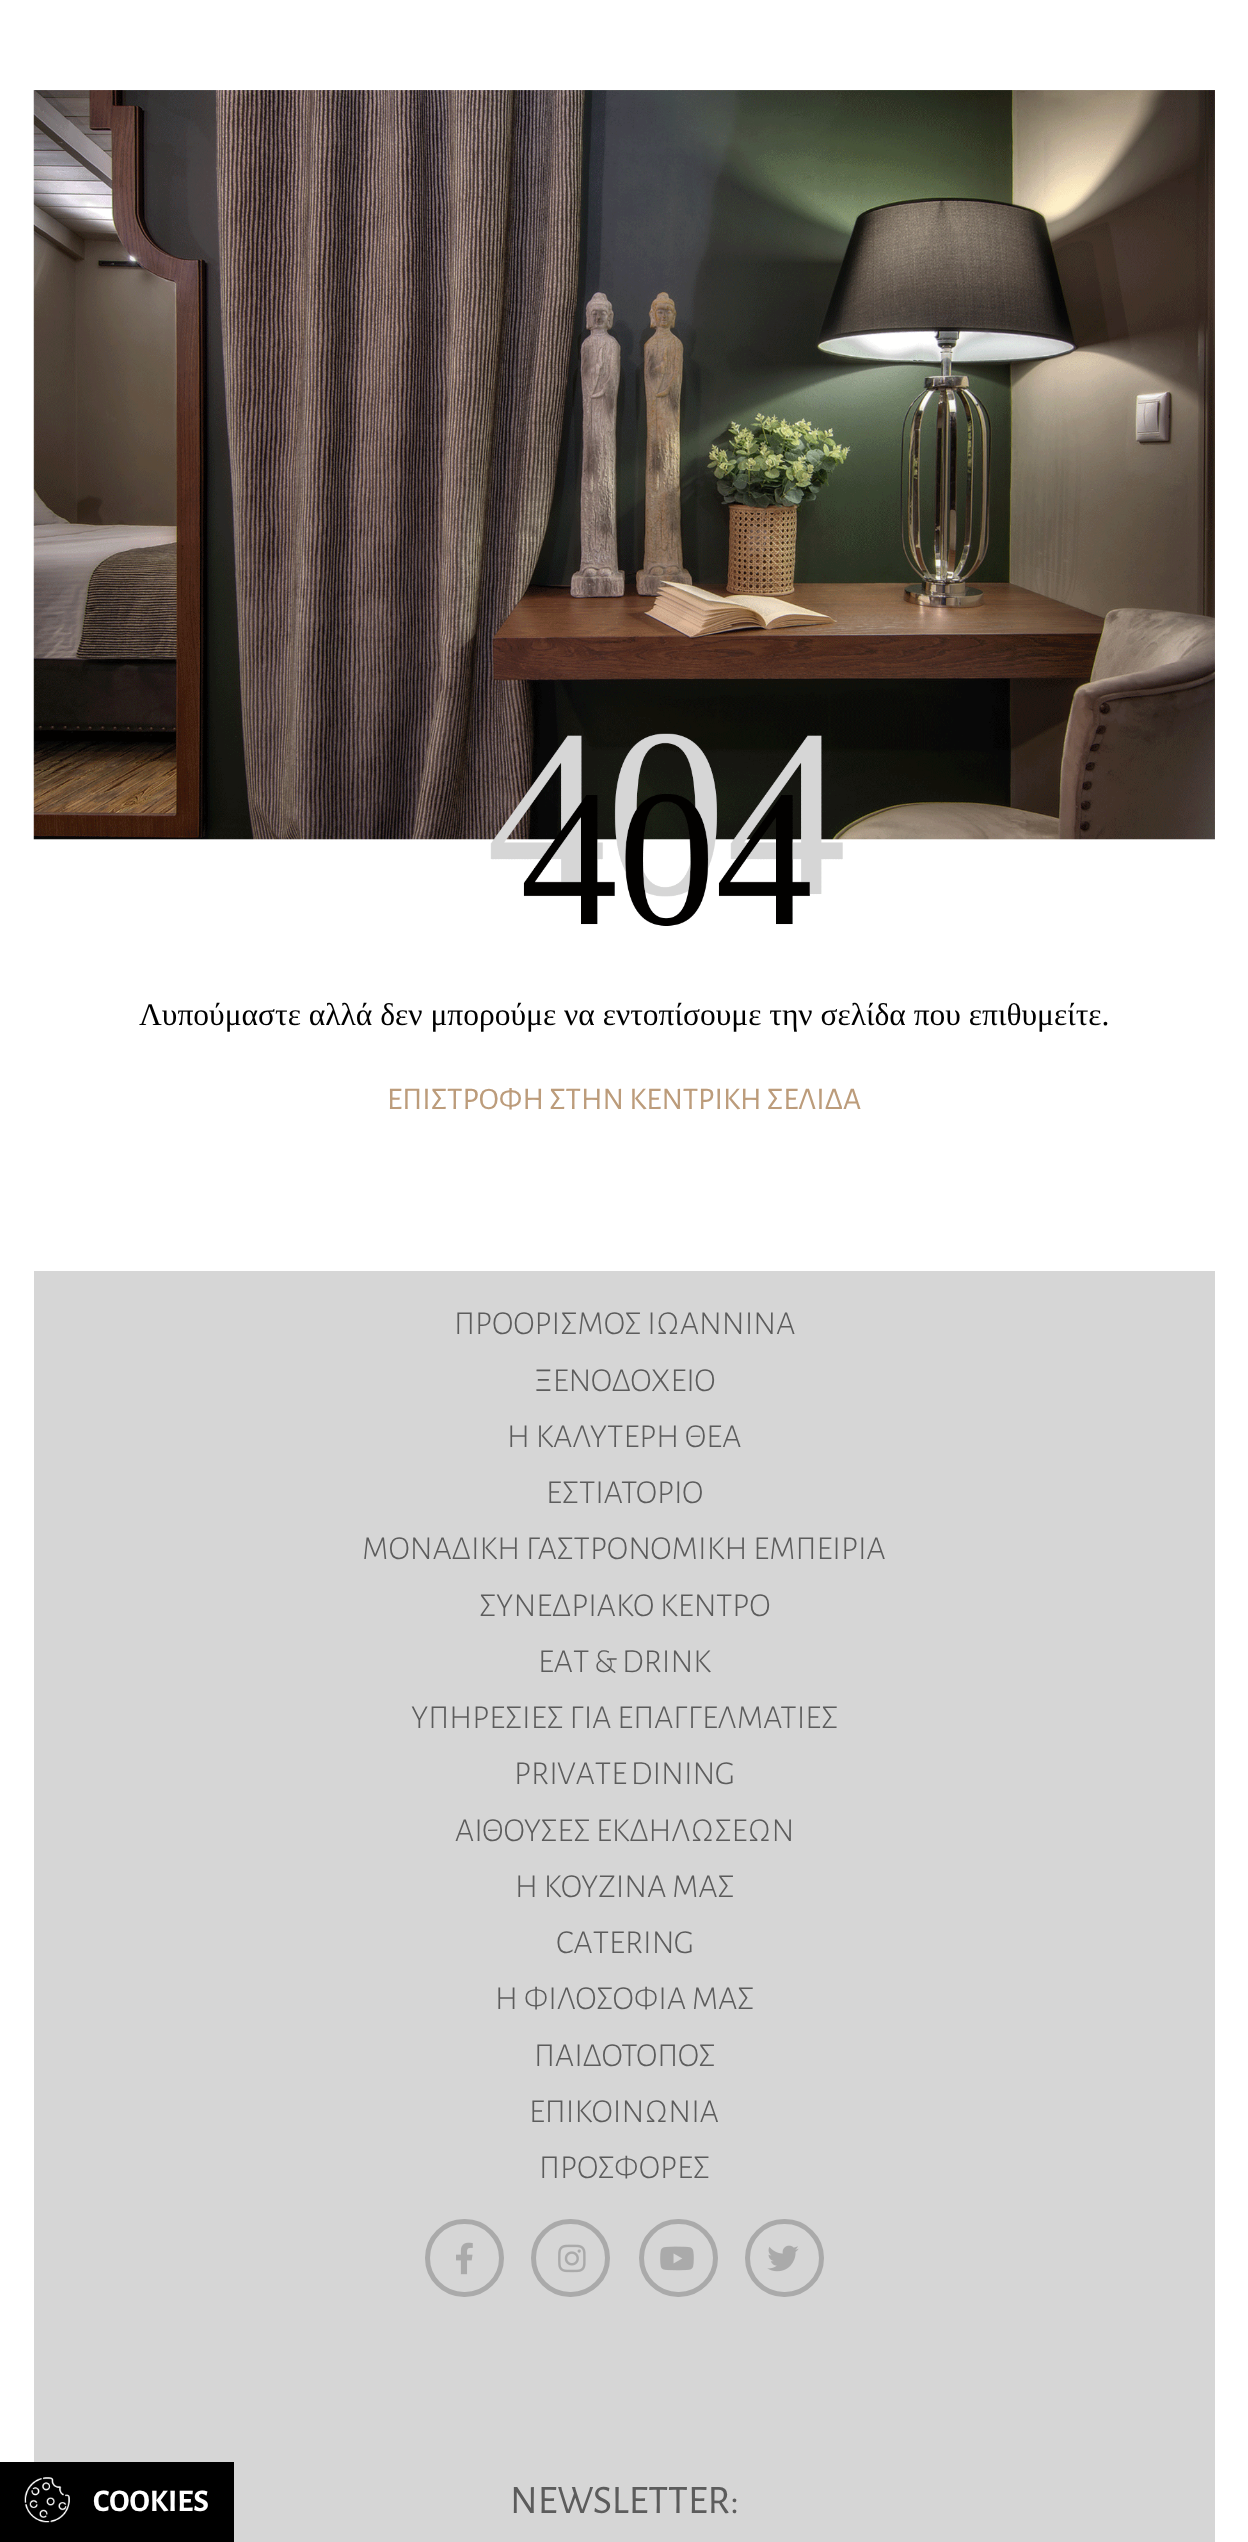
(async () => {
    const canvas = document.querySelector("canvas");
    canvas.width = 1248;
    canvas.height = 2542;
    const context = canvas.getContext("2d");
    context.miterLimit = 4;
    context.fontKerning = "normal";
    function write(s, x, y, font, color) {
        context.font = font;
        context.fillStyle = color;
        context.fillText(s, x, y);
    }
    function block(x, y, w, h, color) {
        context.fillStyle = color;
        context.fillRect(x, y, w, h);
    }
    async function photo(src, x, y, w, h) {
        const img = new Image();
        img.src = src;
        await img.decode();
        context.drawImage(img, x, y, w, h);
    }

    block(0, 0, 1248, 2542, "rgb(255, 255, 255)");
    await photo("media/1.png", 33, 90, 1182, 836);
    write("Λυπούμαστε αλλά δεν μπορούμε να εντοπίσουμε την σελίδα που επιθυμείτε.", 139, 1025, "31.5px Tinos", "rgb(0, 0, 0)");
    write("ΕΠΙΣΤΡΟΦΗ ΣΤΗΝ ΚΕΝΤΡΙΚΗ ΣΕΛΙΔΑ", 387, 1109, "31.5px Alegreya Sans", "rgb(188, 156, 123)");
    block(34, 1271, 1181, 1271, "rgb(214, 214, 214)");
    block(0, 2462, 234, 80, "rgb(0, 0, 0)");
    await photo("media/2.png", 24, 2477, 46, 46);
    write("COOKIES", 93, 2511, "bold 31.5px Alegreya Sans", "rgb(255, 255, 255)");
    write("ΠΡΟΟΡΙΣΜΟΣ ΙΩΑΝΝΙΝΑ", 454, 1334, "300 33.75px Alegreya Sans", "rgb(92, 92, 92)");
    write("ΞΕΝΟΔΟΧΕΙΟ", 534, 1391, "300 33.75px Alegreya Sans", "rgb(92, 92, 92)");
    write("Η ΚΑΛΥΤΕΡΗ ΘΕΑ", 507, 1447, "300 33.75px Alegreya Sans", "rgb(92, 92, 92)");
    write("ΕΣΤΙΑΤΟΡΙΟ", 546, 1503, "300 33.75px Alegreya Sans", "rgb(92, 92, 92)");
    write("ΜΟΝΑΔΙΚΗ ΓΑΣΤΡΟΝΟΜΙΚΗ ΕΜΠΕΙΡΙΑ", 362, 1559, "300 33.75px Alegreya Sans", "rgb(92, 92, 92)");
    write("ΣΥΝΕΔΡΙΑΚΟ ΚΕΝΤΡΟ", 479, 1616, "300 33.75px Alegreya Sans", "rgb(92, 92, 92)");
    context.wordSpacing = "-1px";
    write("EAT & DRINK", 538, 1672, "300 33.75px Alegreya Sans", "rgb(92, 92, 92)");
    context.wordSpacing = "0px";
    write("ΥΠΗΡΕΣΙΕΣ ΓΙΑ ΕΠΑΓΓΕΛΜΑΤΙΕΣ", 411, 1728, "300 33.75px Alegreya Sans", "rgb(92, 92, 92)");
    context.wordSpacing = "-2px";
    write("PRIVATE DINING", 514, 1784, "300 33.75px Alegreya Sans", "rgb(92, 92, 92)");
    context.wordSpacing = "0px";
    write("ΑΙΘΟΥΣΕΣ ΕΚΔΗΛΩΣΕΩΝ", 455, 1841, "300 33.75px Alegreya Sans", "rgb(92, 92, 92)");
    write("Η ΚΟΥΖΙΝΑ ΜΑΣ", 515, 1897, "300 33.75px Alegreya Sans", "rgb(92, 92, 92)");
    write("CATERING", 556, 1953, "300 33.75px Alegreya Sans", "rgb(92, 92, 92)");
    write("H ΦΙΛΟΣΟΦΙΑ ΜΑΣ", 495, 2009, "300 33.75px Alegreya Sans", "rgb(92, 92, 92)");
    write("ΠΑΙΔΟΤΟΠΟΣ", 534, 2066, "300 33.75px Alegreya Sans", "rgb(92, 92, 92)");
    write("ΕΠΙΚΟΙΝΩΝΙΑ", 529, 2122, "300 33.75px Alegreya Sans", "rgb(92, 92, 92)");
    write("ΠΡΟΣΦΟΡΕΣ", 539, 2178, "300 33.75px Alegreya Sans", "rgb(92, 92, 92)");
    context.beginPath();
    context.roundRect(427.5, 2221.5, 74, 73, 36.5);
    context.strokeStyle = "rgb(170, 170, 170)";
    context.lineWidth = 5;
    context.stroke();
    await photo("media/3.png", 456, 2242, 17, 33);
    context.beginPath();
    context.roundRect(533.5, 2221.5, 74, 73, 36.5);
    context.stroke();
    await photo("media/4.png", 558, 2244, 28, 29);
    context.beginPath();
    context.roundRect(641.5, 2221.5, 74, 73, 36.5);
    context.stroke();
    await photo("media/5.png", 660, 2246, 34, 25);
    context.beginPath();
    context.roundRect(747.5, 2221.5, 74, 73, 36.5);
    context.stroke();
    await photo("media/6.png", 767, 2245, 32, 27);
    write("NEWSLETTER:", 510, 2513, "40.5px Alegreya Sans", "rgb(92, 92, 92)");
})();
